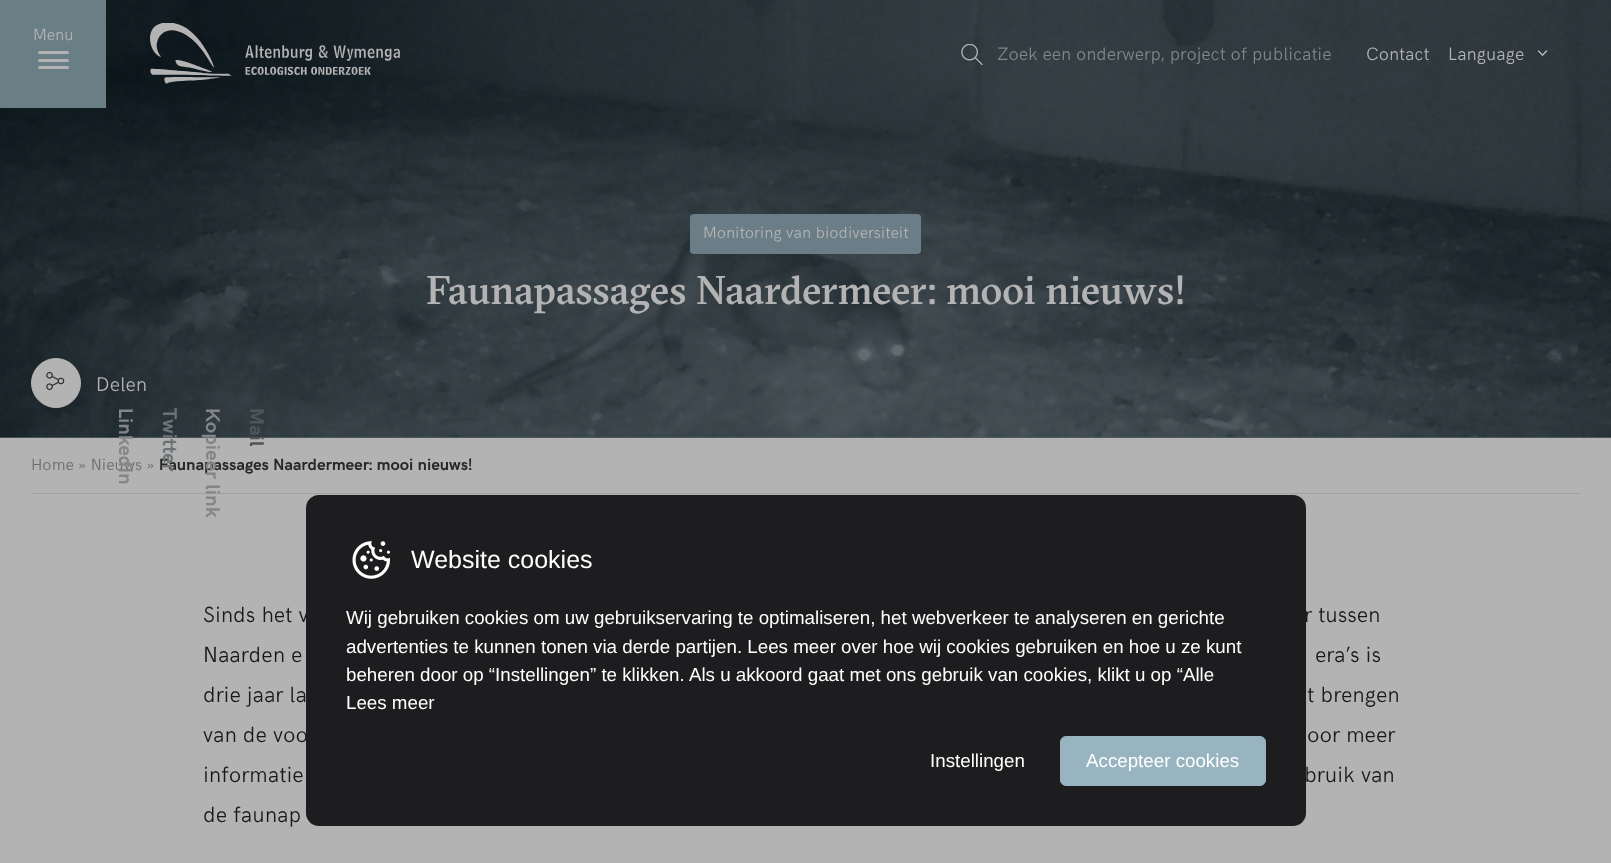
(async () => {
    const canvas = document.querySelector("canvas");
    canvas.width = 1611;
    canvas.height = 863;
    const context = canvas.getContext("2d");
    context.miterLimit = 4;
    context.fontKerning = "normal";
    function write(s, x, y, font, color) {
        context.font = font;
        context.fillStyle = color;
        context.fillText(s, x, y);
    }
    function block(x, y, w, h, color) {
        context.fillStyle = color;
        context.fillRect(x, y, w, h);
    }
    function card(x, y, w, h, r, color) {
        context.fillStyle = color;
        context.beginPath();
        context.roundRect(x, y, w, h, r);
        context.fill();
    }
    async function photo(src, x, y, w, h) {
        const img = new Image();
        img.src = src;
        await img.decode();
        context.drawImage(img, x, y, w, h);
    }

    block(0, 0, 1611, 863, "rgb(179, 179, 179)");
    block(0, 437, 1611, 1, "rgb(79, 95, 103)");
    await photo("media/4.png", 0, 0, 1611, 438);
    block(0, 0, 106, 108, "rgb(106, 126, 134)");
    write("Menu", 33, 40, "300 16.25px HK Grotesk", "rgb(179, 179, 179)");
    card(38, 51, 31, 3, 1.5, "rgb(179, 179, 179)");
    card(38, 59, 31, 3, 1.5, "rgb(179, 179, 179)");
    card(38, 66, 31, 3, 1.5, "rgb(179, 179, 179)");
    await photo("media/1.png", 150, 23, 250, 61);
    await photo("media/2.png", 961, 44, 22, 21);
    write("Zoek een onderwerp, project of publicatie", 997, 60, "300 18px HK Grotesk", "rgb(130, 134, 135)");
    write("Contact", 1366, 60, "300 18px HK Grotesk", "rgb(179, 179, 179)");
    write("Language", 1448, 60, "300 18px HK Grotesk", "rgb(179, 179, 179)");
    await photo("media/3.png", 1538, 50, 10, 6);
    card(690, 214, 231, 40, 4, "rgb(107, 126, 135)");
    write("Monitoring van biodiversiteit", 703, 238, "300 16.25px HK Grotesk", "rgb(179, 179, 179)");
    write("Faunapassages Naardermeer: mooi nieuws!", 426, 304, "500 40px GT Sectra", "rgb(179, 179, 179)");
    context.beginPath();
    context.arc(56, 383, 24.5, 0, Math.PI * 2);
    context.fill();
    context.strokeStyle = "rgb(179, 179, 179)";
    context.stroke();
    await photo("media/5.png", 46, 372, 19, 18);
    write("Delen", 96, 391, "300 20px HK Grotesk", "rgb(179, 179, 179)");
    write("Home » Nieuws »", 31, 470, "300 16.25px HK Grotesk", "rgb(109, 109, 109)");
    context.font = "bold 20px HK Grotesk";
    context.fillStyle = "rgb(130, 134, 135)";
    context.save();
    context.translate(119, 408);
    context.rotate(90 * Math.PI / 180);
    context.fillText("LinkedIn", 0, 0);
    context.restore();
    write("Faunapassages Naardermeer: mooi nieuws!", 159, 470, "bold 16.25px HK Grotesk", "rgb(40, 40, 40)");
    context.font = "bold 20px HK Grotesk";
    context.fillStyle = "rgb(109, 114, 117)";
    context.save();
    context.translate(163, 408);
    context.rotate(90 * Math.PI / 180);
    context.fillText("Twitter", 0, 0);
    context.restore();
    block(31, 493, 1550, 1, "rgb(161, 161, 161)");
    context.fillStyle = "rgb(130, 134, 135)";
    context.save();
    context.translate(206, 408);
    context.rotate(90 * Math.PI / 180);
    context.fillText("Kopieer link", 0, 0);
    context.restore();
    context.fillStyle = "rgb(78, 86, 90)";
    context.save();
    context.translate(250, 408);
    context.rotate(90 * Math.PI / 180);
    context.fillText("Mail", 0, 0);
    context.restore();
    write("Sinds het v", 203, 622, "300 22px HK Grotesk", "rgb(23, 26, 29)");
    write("r tussen", 1304, 622, "300 22px HK Grotesk", "rgb(23, 26, 29)");
    write("Naarden e", 203, 662, "300 22px HK Grotesk", "rgb(23, 26, 29)");
    write("era’s is", 1315, 662, "300 22px HK Grotesk", "rgb(23, 26, 29)");
    write("drie jaar la", 203, 702, "300 22px HK Grotesk", "rgb(23, 26, 29)");
    write("t brengen", 1307, 702, "300 22px HK Grotesk", "rgb(23, 26, 29)");
    write("van de voo", 203, 742, "300 22px HK Grotesk", "rgb(23, 26, 29)");
    write("oor meer", 1307, 742, "300 22px HK Grotesk", "rgb(23, 26, 29)");
    write("informatie", 203, 782, "300 22px HK Grotesk", "rgb(23, 26, 29)");
    write("bruik van", 1304, 782, "300 22px HK Grotesk", "rgb(23, 26, 29)");
    write("de faunap", 203, 822, "300 22px HK Grotesk", "rgb(23, 26, 29)");
    card(306, 495, 1000, 331, 13, "rgb(29, 29, 31)");
    await photo("media/6.png", 352, 541, 38, 38);
    write("Website cookies", 411, 568, "25px Liberation Sans", "rgb(255, 255, 255)");
    write("Wij gebruiken cookies om uw gebruikservaring te optimaliseren, het webverkeer te analyseren en gerichte", 346, 624, "18.75px Liberation Sans", "rgb(255, 255, 255)");
    write("advertenties te kunnen tonen via derde partijen. Lees meer over hoe wij cookies gebruiken en hoe u ze kunt", 346, 653, "18.75px Liberation Sans", "rgb(255, 255, 255)");
    write("beheren door op “Instellingen” te klikken. Als u akkoord gaat met ons gebruik van cookies, klikt u op “Alle", 346, 681, "18.75px Liberation Sans", "rgb(255, 255, 255)");
    write("Lees meer", 346, 709, "18.75px Liberation Sans", "rgb(255, 255, 255)");
    write("Instellingen", 930, 767, "18.75px Liberation Sans", "rgb(255, 255, 255)");
    context.fillStyle = "rgb(151, 180, 192)";
    context.beginPath();
    context.roundRect(1060.5, 736.5, 205, 49, 5.5);
    context.fill();
    context.strokeStyle = "rgb(151, 180, 192)";
    context.stroke();
    write("Accepteer cookies", 1086, 767, "18.75px Liberation Sans", "rgb(255, 255, 255)");
})();
